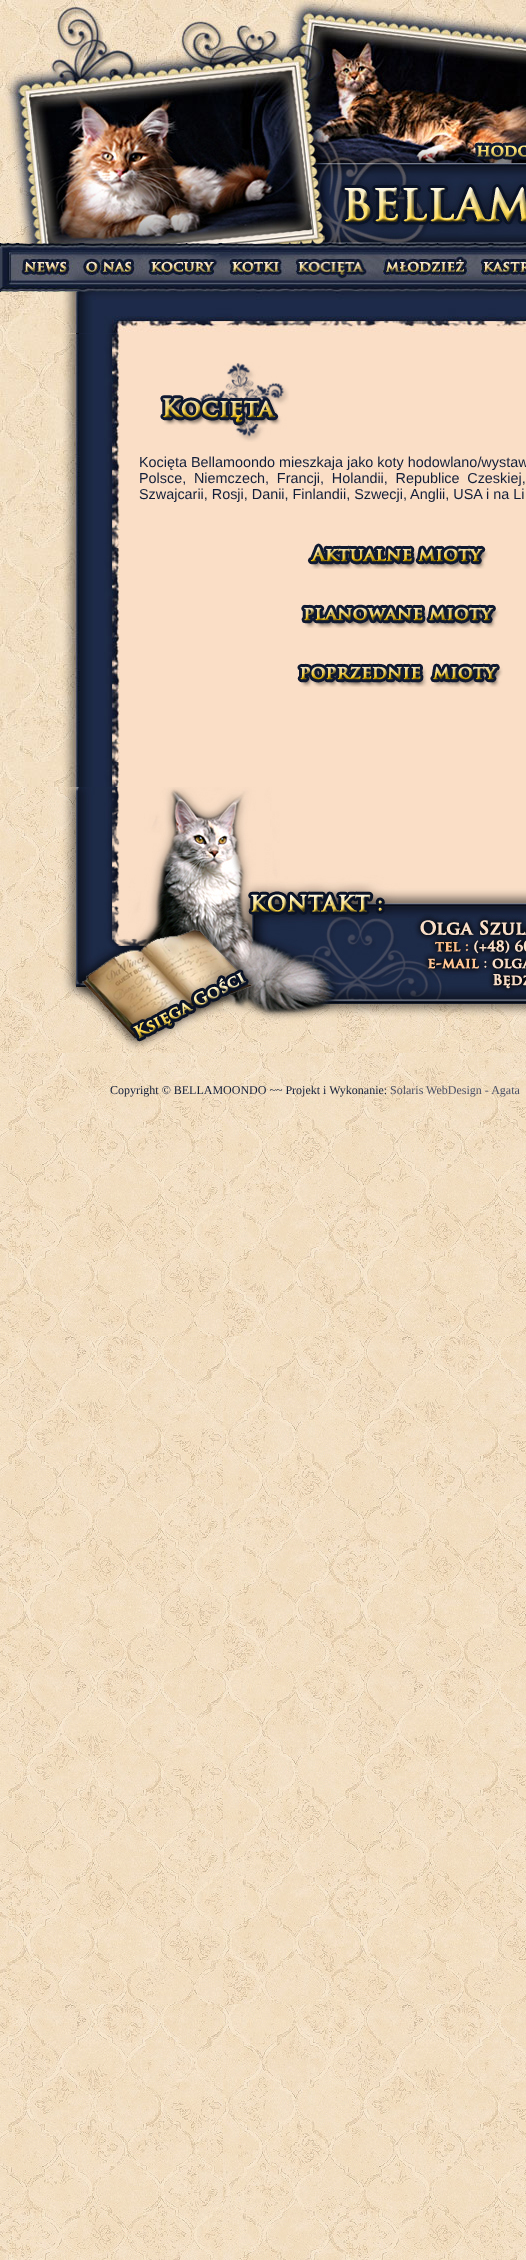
(async () => {
    const canvas = document.querySelector("canvas");
    canvas.width = 526;
    canvas.height = 2260;
    const context = canvas.getContext("2d");
    context.miterLimit = 4;
    context.fontKerning = "normal";
    function write(s, x, y, font, color) {
        context.font = font;
        context.fillStyle = color;
        context.fillText(s, x, y);
    }
    function block(x, y, w, h, color) {
        context.fillStyle = color;
        context.fillRect(x, y, w, h);
    }
    async function photo(src, x, y, w, h) {
        const img = new Image();
        img.src = src;
        await img.decode();
        context.drawImage(img, x, y, w, h);
    }

    block(0, 0, 526, 2260, "rgb(255, 255, 255)");
    await photo("media/1.png", 0, 1053, 526, 1207);
    await photo("media/2.png", 0, 0, 526, 136);
    await photo("media/3.png", 91, 67, 371, 60);
    await photo("media/4.png", 0, 136, 526, 109);
    await photo("media/5.png", 0, 245, 526, 89);
    await photo("media/6.png", 1, 245, 76, 47);
    await photo("media/7.png", 77, 245, 65, 47);
    await photo("media/8.png", 142, 245, 80, 47);
    await photo("media/9.png", 222, 245, 64, 47);
    await photo("media/10.png", 286, 245, 88, 47);
    await photo("media/11.png", 374, 245, 98, 47);
    await photo("media/12.png", 472, 245, 54, 47);
    await photo("media/13.png", 0, 292, 526, 41);
    await photo("media/14.png", 0, 334, 526, 453);
    await photo("media/15.png", 160, 362, 129, 80);
    write("Kocięta Bellamoondo mieszkaja jako koty hodowlano/wystaw", 139, 467, "14.4px Liberation Sans", "rgb(18, 30, 57)");
    context.wordSpacing = "3.75px";
    write("Polsce, Niemczech, Francji, Holandii, Republice Czeskiej,", 139, 483, "14.4px Liberation Sans", "rgb(18, 30, 57)");
    context.wordSpacing = "0px";
    write("Szwajcarii, Rosji, Danii, Finlandii, Szwecji, Anglii, USA i na Li", 139, 499, "14.4px Liberation Sans", "rgb(18, 30, 57)");
    await photo("media/16.png", 305, 540, 183, 29);
    await photo("media/17.png", 300, 602, 200, 26);
    await photo("media/18.png", 297, 661, 206, 26);
    await photo("media/19.png", 0, 787, 526, 266);
    write("Copyright © BELLAMOONDO ~~ Projekt i Wykonanie:", 110, 1094, "12px Liberation Serif", "rgb(18, 30, 57)");
    write("Solaris WebDesign - Agata", 390, 1094, "12px Liberation Serif", "rgb(76, 81, 102)");
})();
